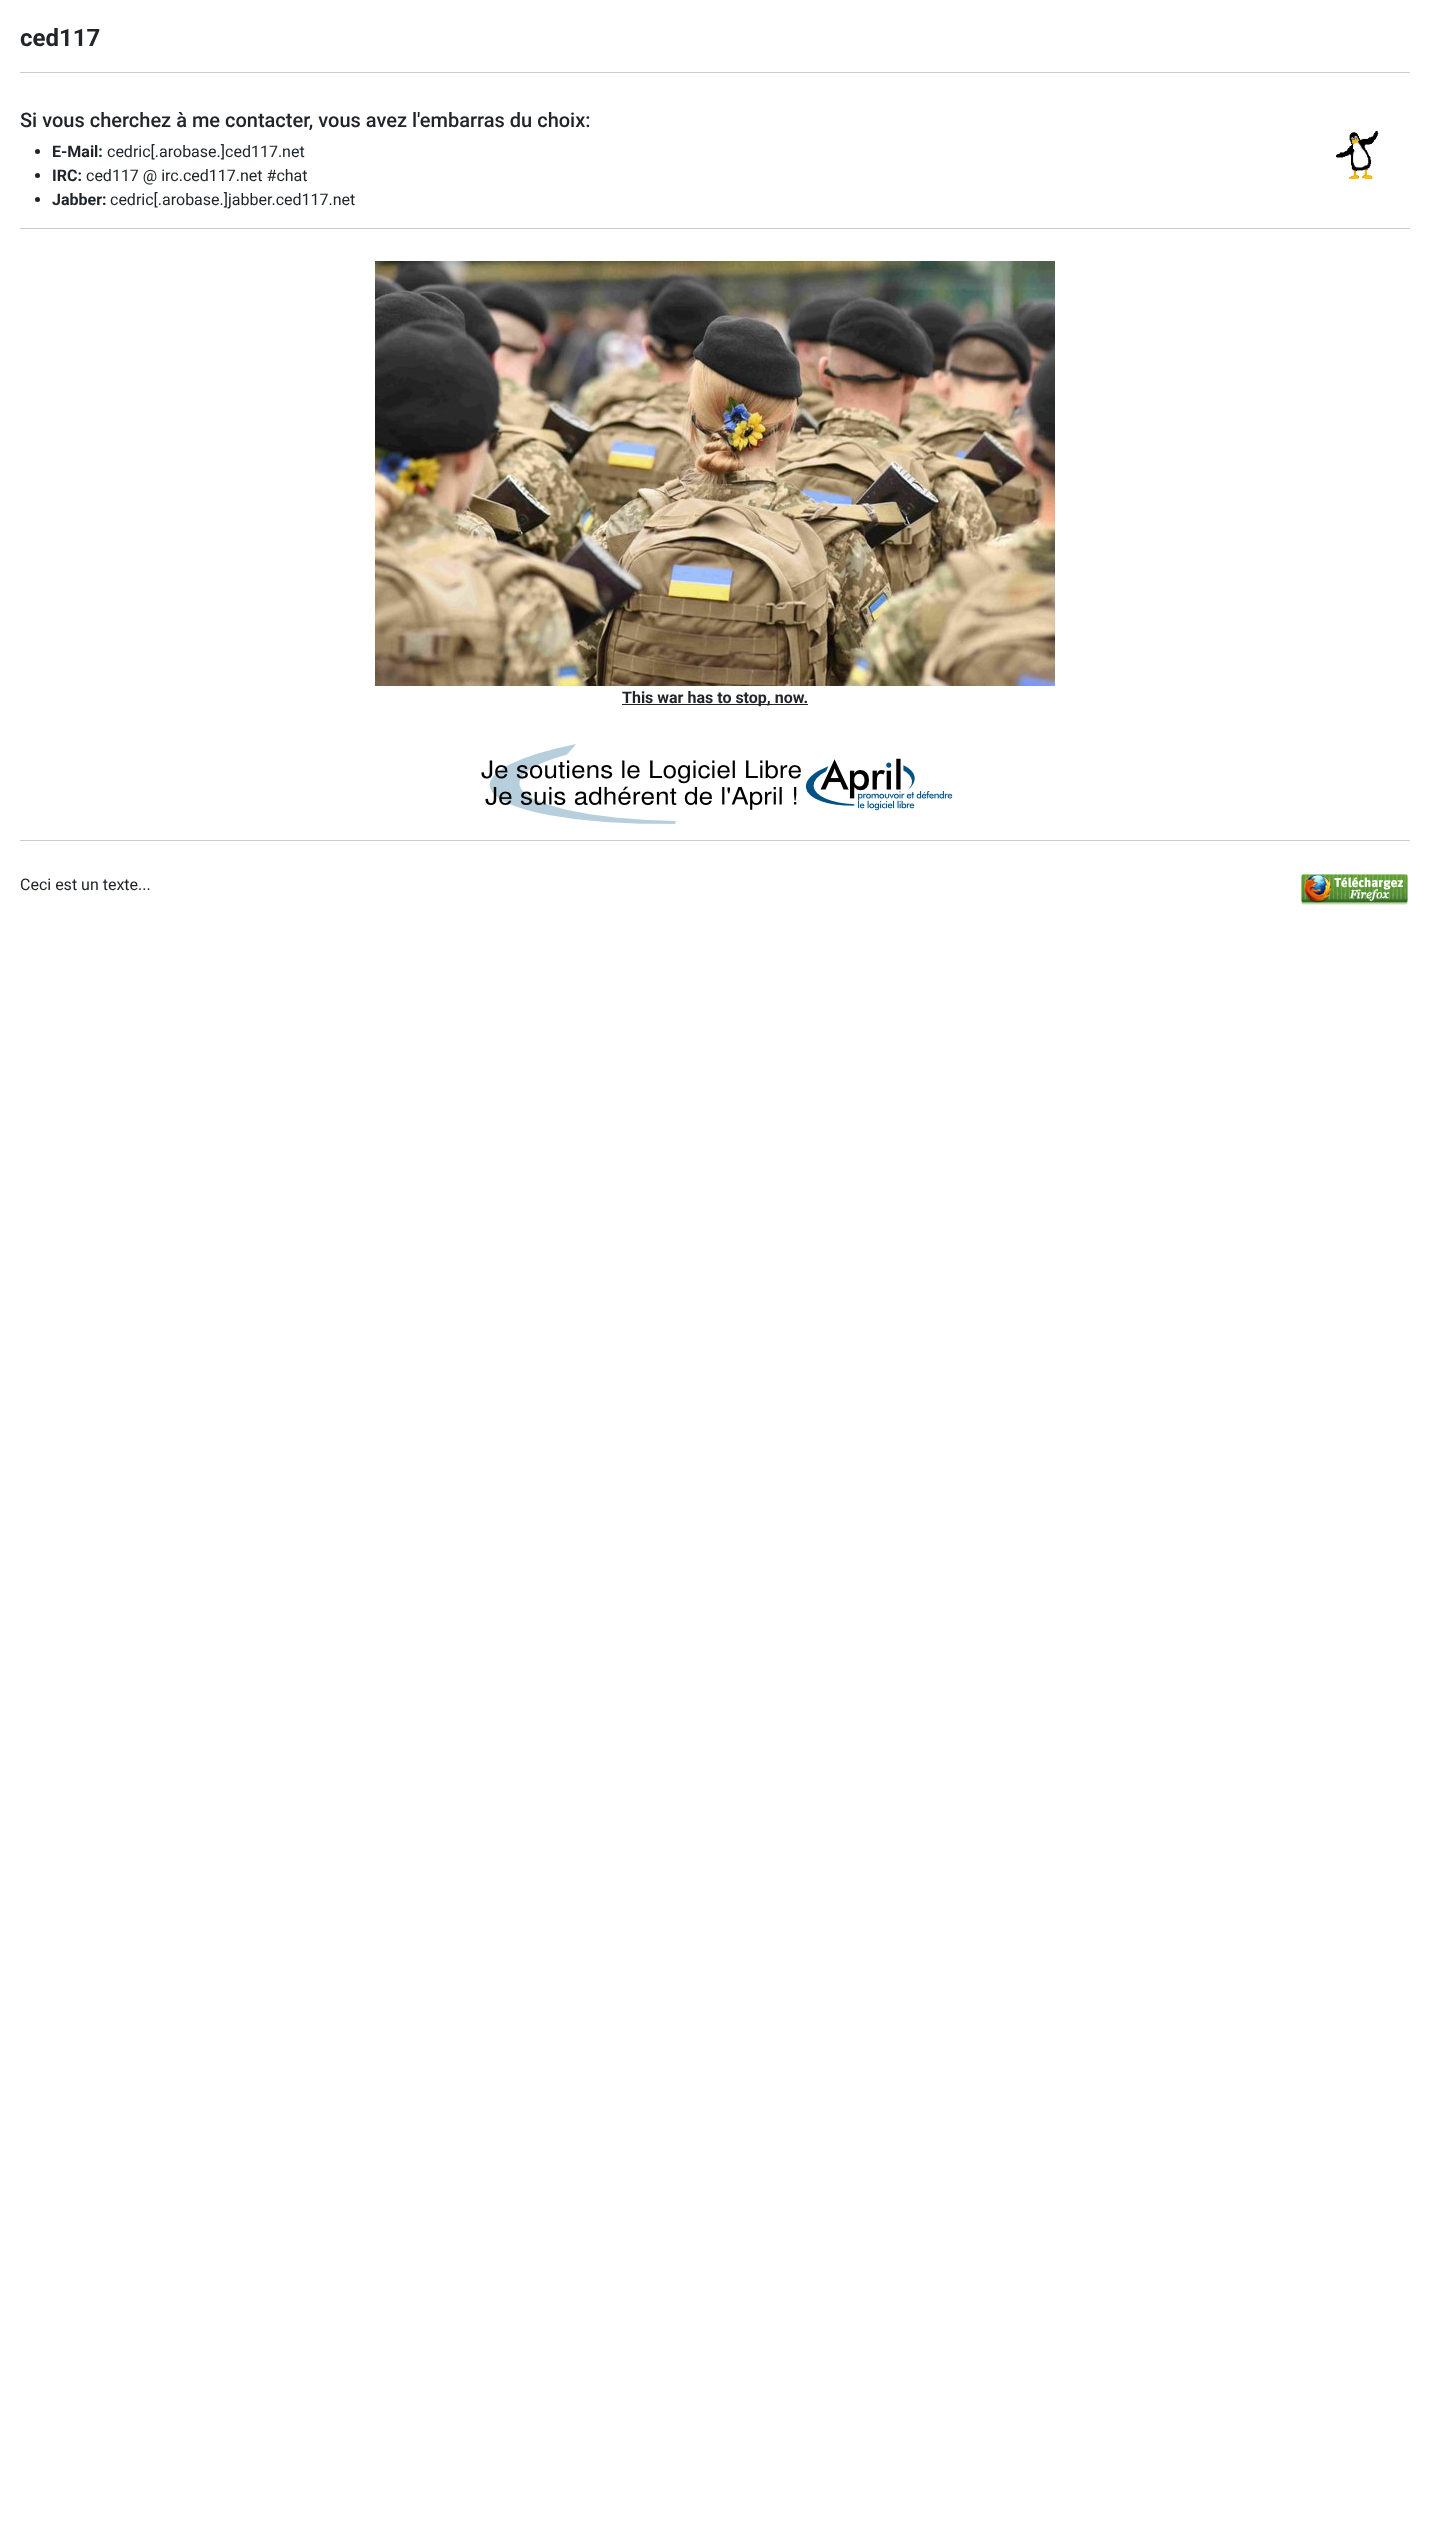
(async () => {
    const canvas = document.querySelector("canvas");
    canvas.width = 1430;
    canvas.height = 2536;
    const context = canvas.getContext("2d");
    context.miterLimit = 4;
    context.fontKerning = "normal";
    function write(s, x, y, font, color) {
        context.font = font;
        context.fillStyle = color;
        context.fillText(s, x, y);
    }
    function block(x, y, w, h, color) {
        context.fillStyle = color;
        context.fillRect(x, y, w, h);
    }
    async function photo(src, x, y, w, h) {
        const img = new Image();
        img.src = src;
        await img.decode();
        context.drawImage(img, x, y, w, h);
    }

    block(0, 0, 1430, 2536, "rgb(255, 255, 255)");
    write("ced117", 20, 46, "bold 24px Roboto", "rgb(33, 37, 41)");
    block(20, 72, 1390, 1, "rgb(204, 204, 204)");
    write("Si vous cherchez à me contacter, vous avez l'embarras du choix:", 20, 127, "500 20px Roboto", "rgb(33, 37, 41)");
    context.beginPath();
    context.arc(37.5, 151.5, 2.5, 0, Math.PI * 2);
    context.fill();
    write("E-Mail:", 52, 157, "bold 16px Roboto", "rgb(33, 37, 41)");
    write("cedric[.arobase.]ced117.net", 107, 157, "16px Roboto", "rgb(33, 37, 41)");
    context.beginPath();
    context.arc(37.5, 175.5, 2.5, 0, Math.PI * 2);
    context.fill();
    write("IRC:", 52, 181, "bold 16px Roboto", "rgb(33, 37, 41)");
    write("ced117 @ irc.ced117.net #chat", 86, 181, "16px Roboto", "rgb(33, 37, 41)");
    context.beginPath();
    context.arc(37.5, 199.5, 2.5, 0, Math.PI * 2);
    context.fill();
    write("Jabber:", 52, 205, "bold 16px Roboto", "rgb(33, 37, 41)");
    write("cedric[.arobase.]jabber.ced117.net", 110, 205, "16px Roboto", "rgb(33, 37, 41)");
    await photo("media/1.png", 1336, 131, 43, 48);
    block(20, 228, 1390, 1, "rgb(204, 204, 204)");
    await photo("media/2.png", 375, 261, 680, 425);
    block(622, 704, 186, 1, "rgb(33, 37, 41)");
    write("This war has to stop, now.", 622, 703, "bold 16px Roboto", "rgb(33, 37, 41)");
    await photo("media/3.png", 481, 744, 472, 80);
    block(20, 840, 1390, 1, "rgb(204, 204, 204)");
    write("Ceci est un texte...", 20, 890, "16px Roboto", "rgb(33, 37, 41)");
    await photo("media/4.png", 1301, 874, 107, 31);
})();
